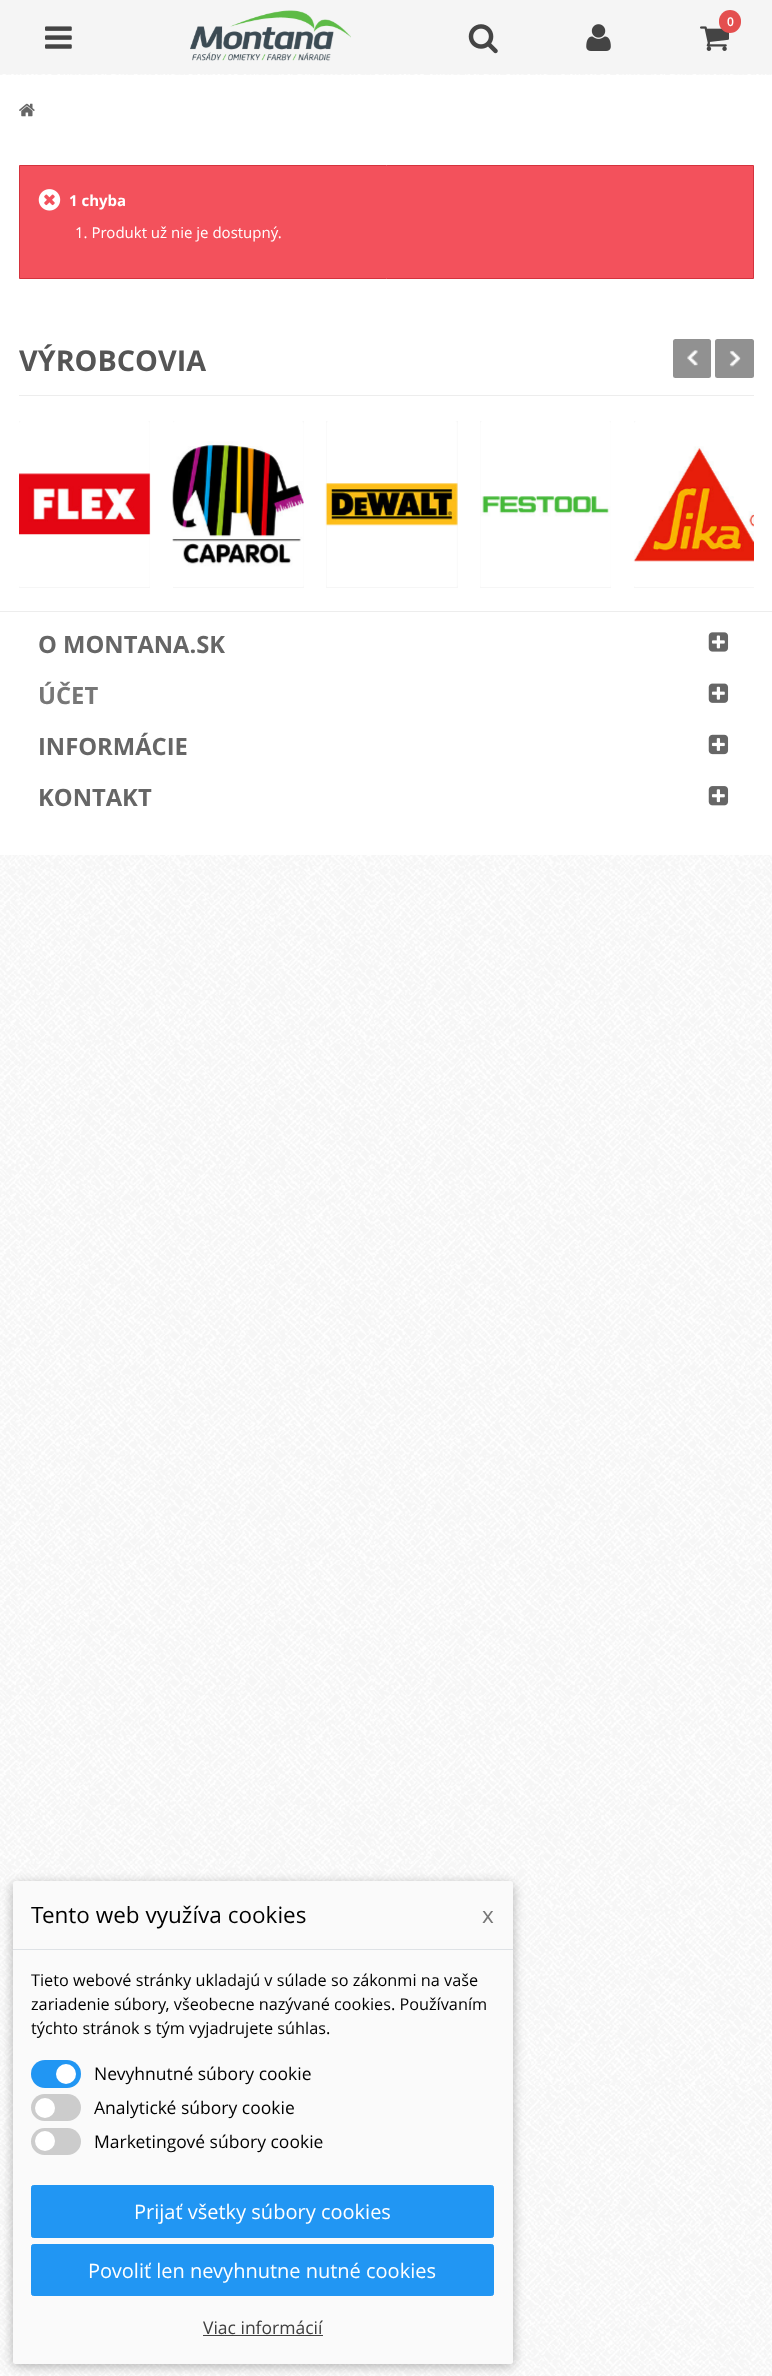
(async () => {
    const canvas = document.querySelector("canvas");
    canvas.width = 772;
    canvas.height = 2376;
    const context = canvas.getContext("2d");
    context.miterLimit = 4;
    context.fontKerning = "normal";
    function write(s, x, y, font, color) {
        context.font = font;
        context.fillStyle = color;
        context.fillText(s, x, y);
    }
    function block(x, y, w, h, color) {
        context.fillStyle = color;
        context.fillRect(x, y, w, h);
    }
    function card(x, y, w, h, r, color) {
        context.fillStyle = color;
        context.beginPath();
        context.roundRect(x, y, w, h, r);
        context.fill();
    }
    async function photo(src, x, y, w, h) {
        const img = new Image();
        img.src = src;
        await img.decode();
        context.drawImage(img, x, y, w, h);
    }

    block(0, 0, 772, 2376, "rgb(255, 255, 255)");
    await photo("media/1.png", 0, 74, 772, 2302);
    block(0, 0, 772, 74, "rgb(245, 245, 245)");
    await photo("media/2.png", 190, 10, 161, 51);
    await photo("media/3.png", 700, 26, 29, 25);
    card(719, 10, 22, 23, 11, "rgb(228, 79, 79)");
    write("0", 727, 26, "600 12px Open Sans", "rgb(255, 255, 255)");
    await photo("media/4.png", 45, 26, 27, 23);
    await photo("media/5.png", 468, 24, 30, 30);
    await photo("media/6.png", 586, 24, 25, 27);
    block(0, 75, 772, 536, "rgb(255, 255, 255)");
    await photo("media/7.png", 19, 103, 16, 14);
    context.fillStyle = "rgb(243, 81, 92)";
    context.beginPath();
    context.rect(19.5, 165.5, 734, 113);
    context.fill();
    context.strokeStyle = "rgb(212, 50, 61)";
    context.stroke();
    await photo("media/8.png", 38, 189, 23, 22);
    write("1 chyba", 69, 206, "bold 15px Open Sans", "rgb(255, 255, 255)");
    write("1. Produkt už nie je dostupný.", 75, 238, "15px Open Sans", "rgb(255, 255, 255)");
    card(673, 339, 38, 39, 2.5, "rgb(145, 145, 145)");
    await photo("media/9.png", 687, 350, 11, 16);
    card(715, 339, 39, 39, 2.5, "rgb(145, 145, 145)");
    await photo("media/10.png", 729, 350, 12, 17);
    block(19, 421, 131, 167, "rgb(246, 246, 246)");
    await photo("media/11.png", 19, 421, 132, 166);
    block(173, 421, 131, 167, "rgb(246, 246, 246)");
    await photo("media/12.png", 172, 421, 132, 166);
    block(326, 421, 132, 167, "rgb(246, 246, 246)");
    await photo("media/13.png", 325, 421, 133, 166);
    block(480, 421, 131, 167, "rgb(246, 246, 246)");
    await photo("media/14.png", 480, 421, 131, 166);
    block(634, 421, 120, 167, "rgb(246, 246, 246)");
    await photo("media/15.png", 633, 421, 121, 166);
    block(19, 395, 735, 1, "rgb(237, 237, 237)");
    write("VÝROBCOVIA", 19, 371, "bold 28.75px Open Sans", "rgb(85, 85, 85)");
    block(0, 612, 772, 243, "rgb(255, 255, 255)");
    block(0, 611, 772, 1, "rgb(237, 237, 237)");
    write("O MONTANA.SK", 38, 653, "bold 23.75px Open Sans", "rgb(102, 102, 102)");
    await photo("media/16.png", 708, 632, 21, 20);
    write("ÚČET", 38, 704, "bold 23.75px Open Sans", "rgb(119, 119, 119)");
    await photo("media/17.png", 708, 683, 21, 20);
    write("INFORMÁCIE", 38, 755, "bold 23.75px Open Sans", "rgb(102, 102, 102)");
    await photo("media/18.png", 708, 734, 21, 21);
    write("KONTAKT", 38, 806, "bold 23.75px Open Sans", "rgb(102, 102, 102)");
    await photo("media/19.png", 708, 786, 21, 20);
    context.fillStyle = "rgba(0, 0, 0, 0.3)";
    context.filter = "blur(6px)";
    context.beginPath();
    context.roundRect(13, 1884, 500, 482, 2.5);
    context.fill();
    context.filter = "none";
    card(13, 1881, 500, 483, 2.5, "rgb(250, 250, 250)");
    block(13, 1949, 500, 1, "rgb(222, 226, 230)");
    write("Tento web využíva cookies", 31, 1923, "22.5px Open Sans", "rgb(0, 0, 0)");
    write("x", 482, 1923, "22.5px Open Sans", "rgb(119, 119, 119)");
    write("Tieto webové stránky ukladajú v súlade so zákonmi na vaše", 31, 1986, "16.25px Open Sans", "rgb(0, 0, 0)");
    write("zariadenie súbory, všeobecne nazývané cookies. Používaním", 31, 2010, "16.25px Open Sans", "rgb(0, 0, 0)");
    write("týchto stránok s tým vyjadrujete súhlas.", 31, 2034, "16.25px Open Sans", "rgb(0, 0, 0)");
    card(31, 2060, 50, 28, 14, "rgb(33, 150, 243)");
    context.fillStyle = "rgb(255, 255, 255)";
    context.beginPath();
    context.arc(66, 2074, 10, 0, Math.PI * 2);
    context.fill();
    write("Nevyhnutné súbory cookie", 94, 2080, "17.5px Open Sans", "rgb(0, 0, 0)");
    card(31, 2094, 50, 27, 13.5, "rgb(204, 204, 204)");
    context.fillStyle = "rgb(255, 255, 255)";
    context.beginPath();
    context.arc(45, 2108, 10, 0, Math.PI * 2);
    context.fill();
    write("Analytické súbory cookie", 94, 2114, "17.5px Open Sans", "rgb(0, 0, 0)");
    card(31, 2128, 50, 27, 13.5, "rgb(204, 204, 204)");
    context.fillStyle = "rgb(255, 255, 255)";
    context.beginPath();
    context.arc(45, 2141, 10, 0, Math.PI * 2);
    context.fill();
    write("Marketingové súbory cookie", 94, 2148, "17.5px Open Sans", "rgb(0, 0, 0)");
    context.fillStyle = "rgb(33, 150, 243)";
    context.beginPath();
    context.roundRect(31.5, 2185.5, 462, 52, 2);
    context.fill();
    context.strokeStyle = "rgb(33, 150, 243)";
    context.stroke();
    write("Prijať všetky súbory cookies", 134, 2219, "20px Open Sans", "rgb(255, 255, 255)");
    context.fillStyle = "rgb(33, 150, 243)";
    context.beginPath();
    context.roundRect(31.5, 2244.5, 462, 51, 2);
    context.fill();
    context.stroke();
    write("Povoliť len nevyhnutne nutné cookies", 88, 2278, "20px Open Sans", "rgb(255, 255, 255)");
    write("Viac informácií", 203, 2334, "17.5px Open Sans", "rgb(63, 63, 63)");
    block(203, 2335, 120, 1, "rgb(63, 63, 63)");
})();
